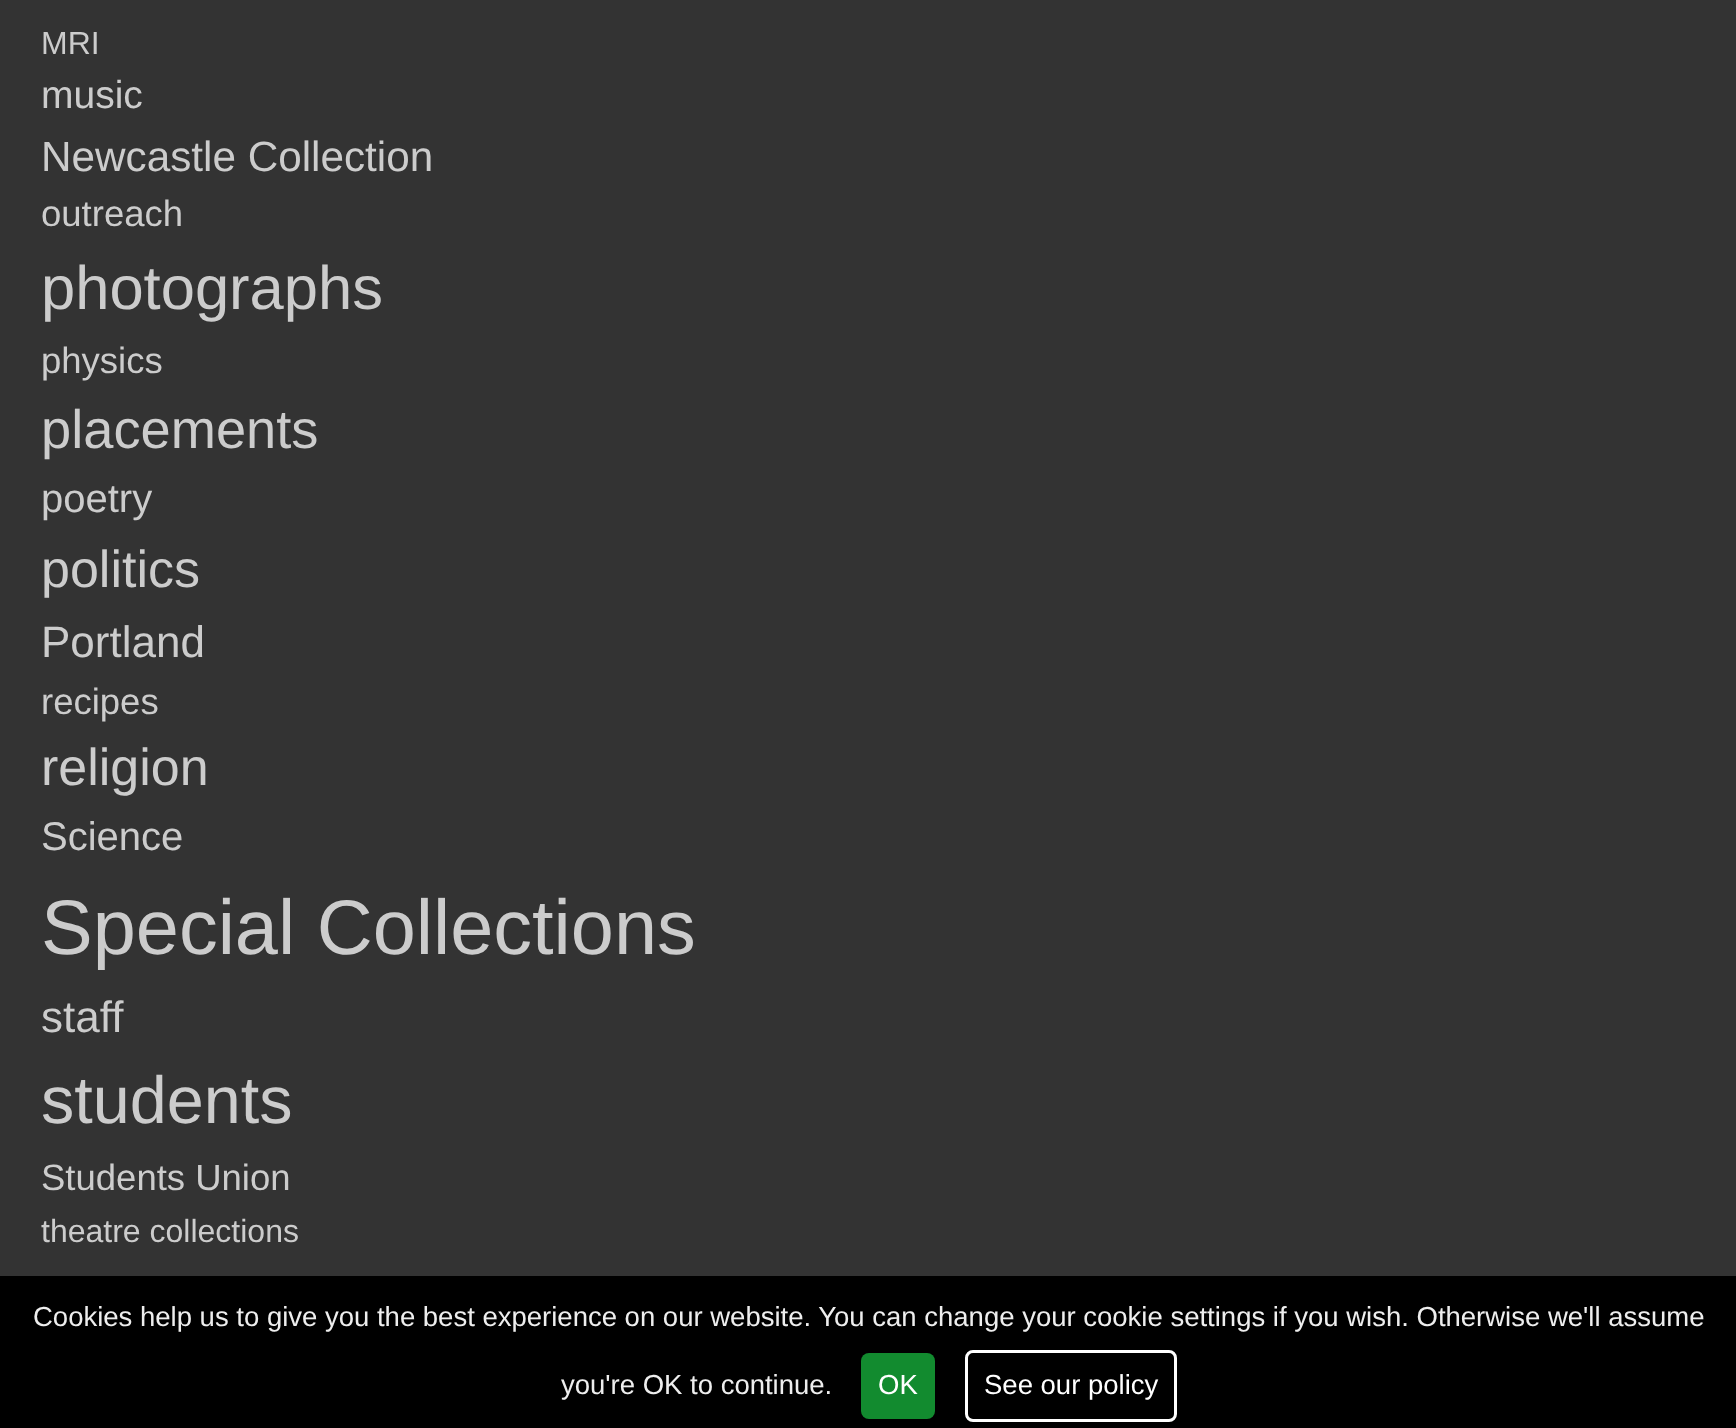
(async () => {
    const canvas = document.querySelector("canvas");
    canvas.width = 1736;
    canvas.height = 1428;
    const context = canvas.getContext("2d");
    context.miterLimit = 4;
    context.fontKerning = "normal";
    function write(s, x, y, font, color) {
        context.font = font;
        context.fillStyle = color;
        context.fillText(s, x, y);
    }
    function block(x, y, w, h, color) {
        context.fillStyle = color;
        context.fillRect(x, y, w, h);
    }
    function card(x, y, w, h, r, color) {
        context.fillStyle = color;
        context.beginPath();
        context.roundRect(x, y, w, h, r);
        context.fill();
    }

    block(0, 0, 1736, 1428, "rgb(51, 51, 51)");
    write("MRI", 41, 54, "32px Liberation Sans", "rgb(204, 204, 204)");
    write("music", 41, 108, "39px Liberation Sans", "rgb(204, 204, 204)");
    write("Newcastle Collection", 41, 171, "42.25px Liberation Sans", "rgb(204, 204, 204)");
    write("outreach", 41, 226, "36.5px Liberation Sans", "rgb(204, 204, 204)");
    write("photographs", 41, 309, "61.5px Liberation Sans", "rgb(204, 204, 204)");
    write("physics", 41, 373, "36.5px Liberation Sans", "rgb(204, 204, 204)");
    write("placements", 41, 448, "54.25px Liberation Sans", "rgb(204, 204, 204)");
    write("poetry", 41, 512, "40px Liberation Sans", "rgb(204, 204, 204)");
    write("politics", 41, 587, "52px Liberation Sans", "rgb(204, 204, 204)");
    write("Portland", 41, 657, "44px Liberation Sans", "rgb(204, 204, 204)");
    write("recipes", 41, 714, "36.5px Liberation Sans", "rgb(204, 204, 204)");
    write("religion", 41, 785, "52px Liberation Sans", "rgb(204, 204, 204)");
    write("Science", 41, 850, "40px Liberation Sans", "rgb(204, 204, 204)");
    write("Special Collections", 41, 954, "77.5px Liberation Sans", "rgb(204, 204, 204)");
    write("staff", 41, 1032, "44px Liberation Sans", "rgb(204, 204, 204)");
    write("students", 41, 1123, "66.5px Liberation Sans", "rgb(204, 204, 204)");
    write("Students Union", 41, 1190, "36.5px Liberation Sans", "rgb(204, 204, 204)");
    write("theatre collections", 41, 1242, "32px Liberation Sans", "rgb(204, 204, 204)");
    block(0, 1276, 1736, 152, "rgb(0, 0, 0)");
    write("Cookies help us to give you the best experience on our website. You can change your cookie settings if you wish. Otherwise we'll assume", 33, 1326, "27.5px Liberation Sans", "rgb(238, 238, 238)");
    write("you're OK to continue.", 561, 1394, "27.5px Liberation Sans", "rgb(238, 238, 238)");
    card(861, 1353, 74, 66, 8, "rgb(18, 139, 47)");
    write("OK", 878, 1394, "27.5px Liberation Sans", "rgb(255, 255, 255)");
    context.beginPath();
    context.roundRect(966.5, 1351.5, 209, 69, 6.5);
    context.strokeStyle = "rgb(255, 255, 255)";
    context.lineWidth = 3;
    context.stroke();
    write("See our policy", 984, 1394, "27.5px Liberation Sans", "rgb(255, 255, 255)");
})();
